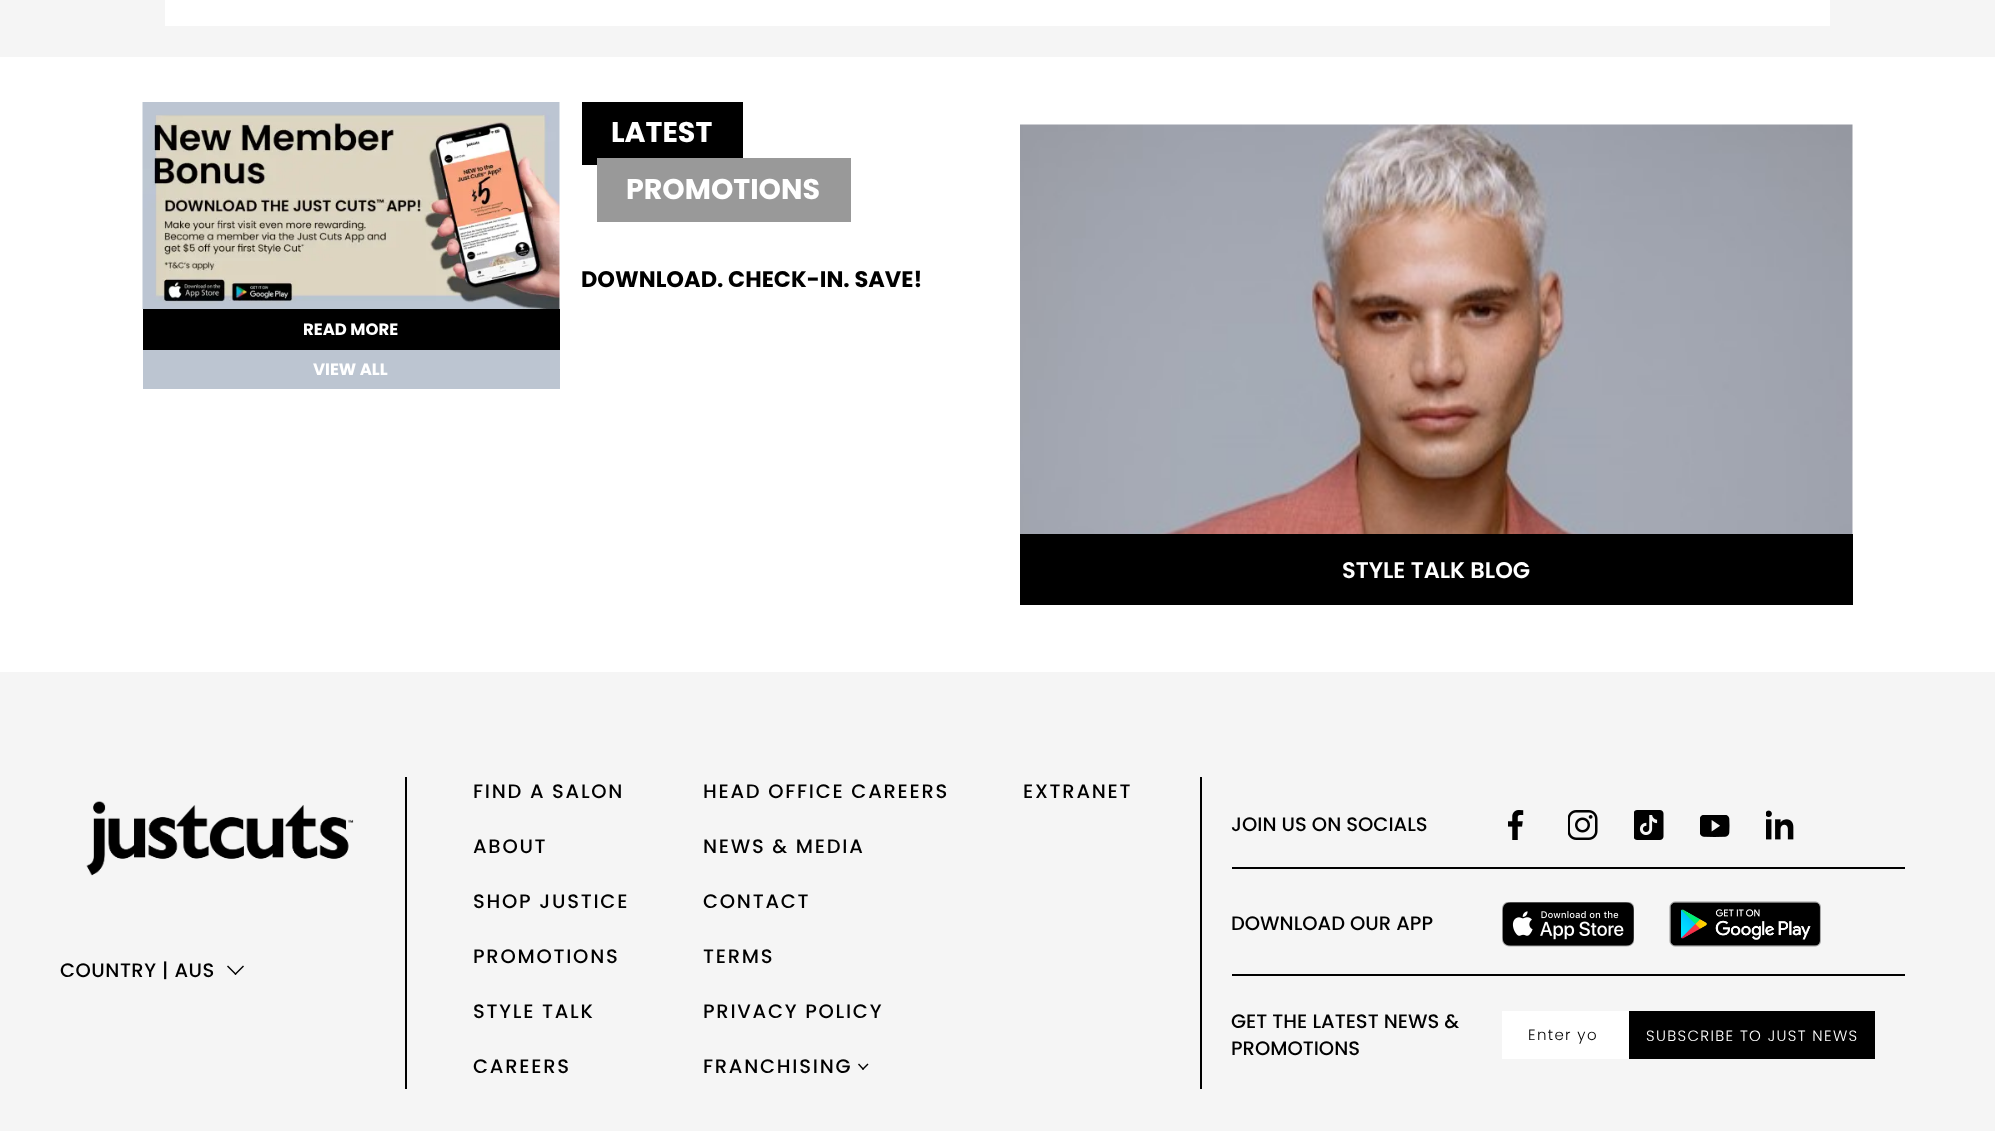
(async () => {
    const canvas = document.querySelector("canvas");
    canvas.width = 1995;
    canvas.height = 1131;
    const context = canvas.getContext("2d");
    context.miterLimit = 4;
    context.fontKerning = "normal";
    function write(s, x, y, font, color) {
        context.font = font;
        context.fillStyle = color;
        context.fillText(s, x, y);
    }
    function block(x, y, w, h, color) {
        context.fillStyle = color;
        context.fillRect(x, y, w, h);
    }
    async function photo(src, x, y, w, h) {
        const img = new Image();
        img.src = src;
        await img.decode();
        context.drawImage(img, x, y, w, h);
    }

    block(0, 0, 1995, 1131, "rgb(245, 245, 245)");
    block(165, 0, 1665, 26, "rgb(255, 255, 255)");
    block(0, 57, 1995, 615, "rgb(255, 255, 255)");
    block(582, 102, 161, 63, "rgb(0, 0, 0)");
    write("LATEST", 611, 142, "bold 28.5px Poppins", "rgb(255, 255, 255)");
    block(597, 158, 254, 64, "rgb(153, 153, 153)");
    write("PROMOTIONS", 626, 199, "bold 28.5px Poppins", "rgb(255, 255, 255)");
    write("DOWNLOAD. CHECK-IN. SAVE!", 581, 287, "bold 22.5px Poppins", "rgb(0, 0, 0)");
    await photo("media/1.png", 142, 102, 418, 207);
    block(143, 309, 417, 41, "rgb(0, 0, 0)");
    write("READ MORE", 303, 335, "bold 16.5px Poppins", "rgb(255, 255, 255)");
    block(143, 350, 417, 39, "rgb(188, 197, 209)");
    write("VIEW ALL", 313, 375, "bold 16.5px Poppins", "rgb(255, 255, 255)");
    await photo("media/2.png", 1020, 124, 833, 410);
    block(1020, 534, 833, 71, "rgb(0, 0, 0)");
    write("STYLE TALK BLOG", 1342, 578, "600 22.5px Poppins", "rgb(255, 255, 255)");
    await photo("media/3.png", 86, 801, 268, 75);
    context.letterSpacing = "0.5px";
    write("COUNTRY | AUS", 60, 977, "500 19.5px Poppins", "rgb(0, 0, 0)");
    context.beginPath();
    context.moveTo(243, 965.5);
    context.lineTo(244, 966.5);
    context.lineTo(235.5, 975);
    context.lineTo(234.5, 974);
    context.closePath();
    context.fill();
    context.beginPath();
    context.moveTo(228, 965.5);
    context.lineTo(236.5, 974);
    context.lineTo(235.5, 975);
    context.lineTo(227, 966.5);
    context.closePath();
    context.fill();
    block(405, 777, 2, 312, "rgb(0, 0, 0)");
    context.letterSpacing = "1.75px";
    write("FIND A SALON", 473, 798, "500 19.5px Poppins", "rgb(0, 0, 0)");
    write("HEAD OFFICE CAREERS", 703, 798, "500 19.5px Poppins", "rgb(0, 0, 0)");
    write("EXTRANET", 1023, 798, "500 19.5px Poppins", "rgb(0, 0, 0)");
    write("ABOUT", 473, 853, "500 19.5px Poppins", "rgb(0, 0, 0)");
    write("NEWS & MEDIA", 703, 853, "500 19.5px Poppins", "rgb(0, 0, 0)");
    write("SHOP JUSTICE", 473, 908, "500 19.5px Poppins", "rgb(0, 0, 0)");
    write("CONTACT", 703, 908, "500 19.5px Poppins", "rgb(0, 0, 0)");
    write("PROMOTIONS", 473, 963, "500 19.5px Poppins", "rgb(0, 0, 0)");
    write("TERMS", 703, 963, "500 19.5px Poppins", "rgb(0, 0, 0)");
    write("STYLE TALK", 473, 1018, "500 19.5px Poppins", "rgb(0, 0, 0)");
    write("PRIVACY POLICY", 703, 1018, "500 19.5px Poppins", "rgb(0, 0, 0)");
    write("CAREERS", 473, 1073, "500 19.5px Poppins", "rgb(0, 0, 0)");
    write("FRANCHISING", 703, 1073, "500 19.5px Poppins", "rgb(0, 0, 0)");
    context.beginPath();
    context.moveTo(867.5, 1063.5);
    context.lineTo(868.5, 1064.5);
    context.lineTo(863, 1070);
    context.lineTo(862, 1069);
    context.closePath();
    context.fill();
    context.beginPath();
    context.moveTo(859, 1063.5);
    context.lineTo(864, 1069);
    context.lineTo(863, 1070);
    context.lineTo(858, 1064.5);
    context.closePath();
    context.fill();
    block(1200, 777, 2, 312, "rgb(0, 0, 0)");
    block(1232, 867, 673, 2, "rgb(0, 0, 0)");
    context.letterSpacing = "0px";
    write("JOIN US ON SOCIALS", 1231, 831, "500 19.5px Poppins", "rgb(0, 0, 0)");
    await photo("media/4.png", 1508, 810, 16, 30);
    await photo("media/5.png", 1568, 810, 30, 30);
    await photo("media/6.png", 1634, 810, 30, 30);
    await photo("media/7.png", 1700, 815, 30, 22);
    await photo("media/8.png", 1766, 810, 28, 30);
    block(1232, 974, 673, 2, "rgb(0, 0, 0)");
    write("DOWNLOAD OUR APP", 1231, 930, "500 19.5px Poppins", "rgb(0, 0, 0)");
    await photo("media/9.png", 1502, 902, 132, 45);
    await photo("media/10.png", 1669, 901, 152, 46);
    write("GET THE LATEST NEWS &", 1231, 1028, "500 19.5px Poppins", "rgb(0, 0, 0)");
    write("PROMOTIONS", 1231, 1055, "500 19.5px Poppins", "rgb(0, 0, 0)");
    block(1502, 1011, 127, 48, "rgb(255, 255, 255)");
    context.letterSpacing = "1.35px";
    write("Enter yo", 1528, 1040, "300 15px Poppins", "rgb(0, 0, 0)");
    block(1629, 1011, 246, 48, "rgb(0, 0, 0)");
    write("SUBSCRIBE TO JUST NEWS", 1646, 1041, "300 15px Poppins", "rgb(255, 255, 255)");
})();
